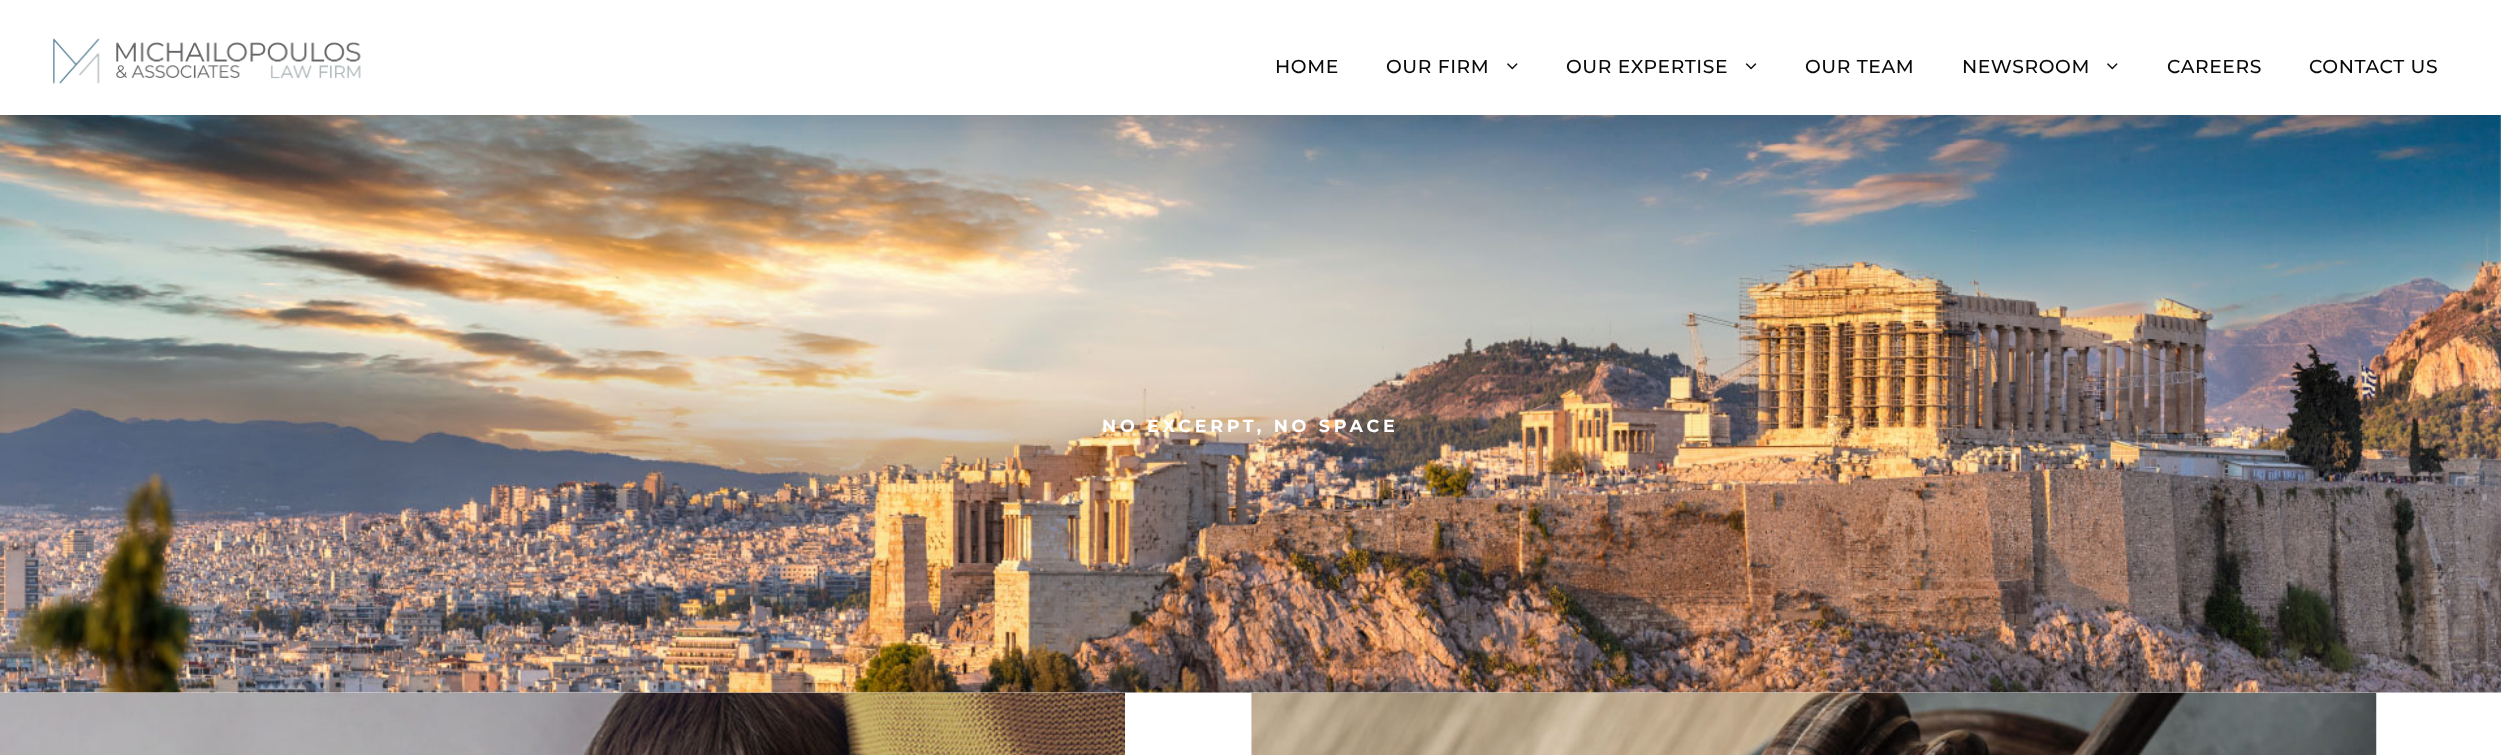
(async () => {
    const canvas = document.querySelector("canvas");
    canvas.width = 2501;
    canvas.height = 755;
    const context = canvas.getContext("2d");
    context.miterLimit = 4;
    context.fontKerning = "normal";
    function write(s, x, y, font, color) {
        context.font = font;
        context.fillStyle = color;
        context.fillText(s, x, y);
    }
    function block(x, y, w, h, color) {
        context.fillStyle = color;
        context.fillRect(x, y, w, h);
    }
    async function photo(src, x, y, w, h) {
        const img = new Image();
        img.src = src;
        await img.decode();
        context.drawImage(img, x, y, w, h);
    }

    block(0, 0, 2501, 755, "rgb(255, 255, 255)");
    await photo("media/4.png", 0, 115, 2501, 578);
    context.fillStyle = "rgba(0, 0, 0, 0.1)";
    context.filter = "blur(15px)";
    context.beginPath();
    context.rect(0, 0, 2501, 115);
    context.fill();
    context.filter = "none";
    block(0, 0, 2501, 115, "rgb(255, 255, 255)");
    await photo("media/1.png", 53, 38, 308, 46);
    context.letterSpacing = "0.6px";
    write("HOME", 1275, 73, "500 18.75px Montserrat", "rgb(10, 10, 10)");
    write("OUR FIRM", 1386, 73, "500 18.75px Montserrat", "rgb(10, 10, 10)");
    await photo("media/2.png", 1507, 63, 11, 7);
    write("OUR EXPERTISE", 1566, 73, "500 18.75px Montserrat", "rgb(10, 10, 10)");
    await photo("media/3.png", 1745, 63, 12, 7);
    write("OUR TEAM", 1805, 73, "500 18.75px Montserrat", "rgb(10, 10, 10)");
    write("NEWSROOM", 1962, 73, "500 18.75px Montserrat", "rgb(10, 10, 10)");
    await photo("media/2.png", 2107, 63, 11, 7);
    write("CAREERS", 2167, 73, "500 18.75px Montserrat", "rgb(10, 10, 10)");
    write("CONTACT US", 2309, 73, "500 18.75px Montserrat", "rgb(10, 10, 10)");
    context.letterSpacing = "3.75px";
    write("NO EXCERPT, NO SPACE", 1102, 432, "bold 17.5px Montserrat", "rgb(255, 255, 255)");
    await photo("media/5.png", 0, 692, 1125, 63);
    await photo("media/6.png", 1251, 692, 1126, 63);
})();
